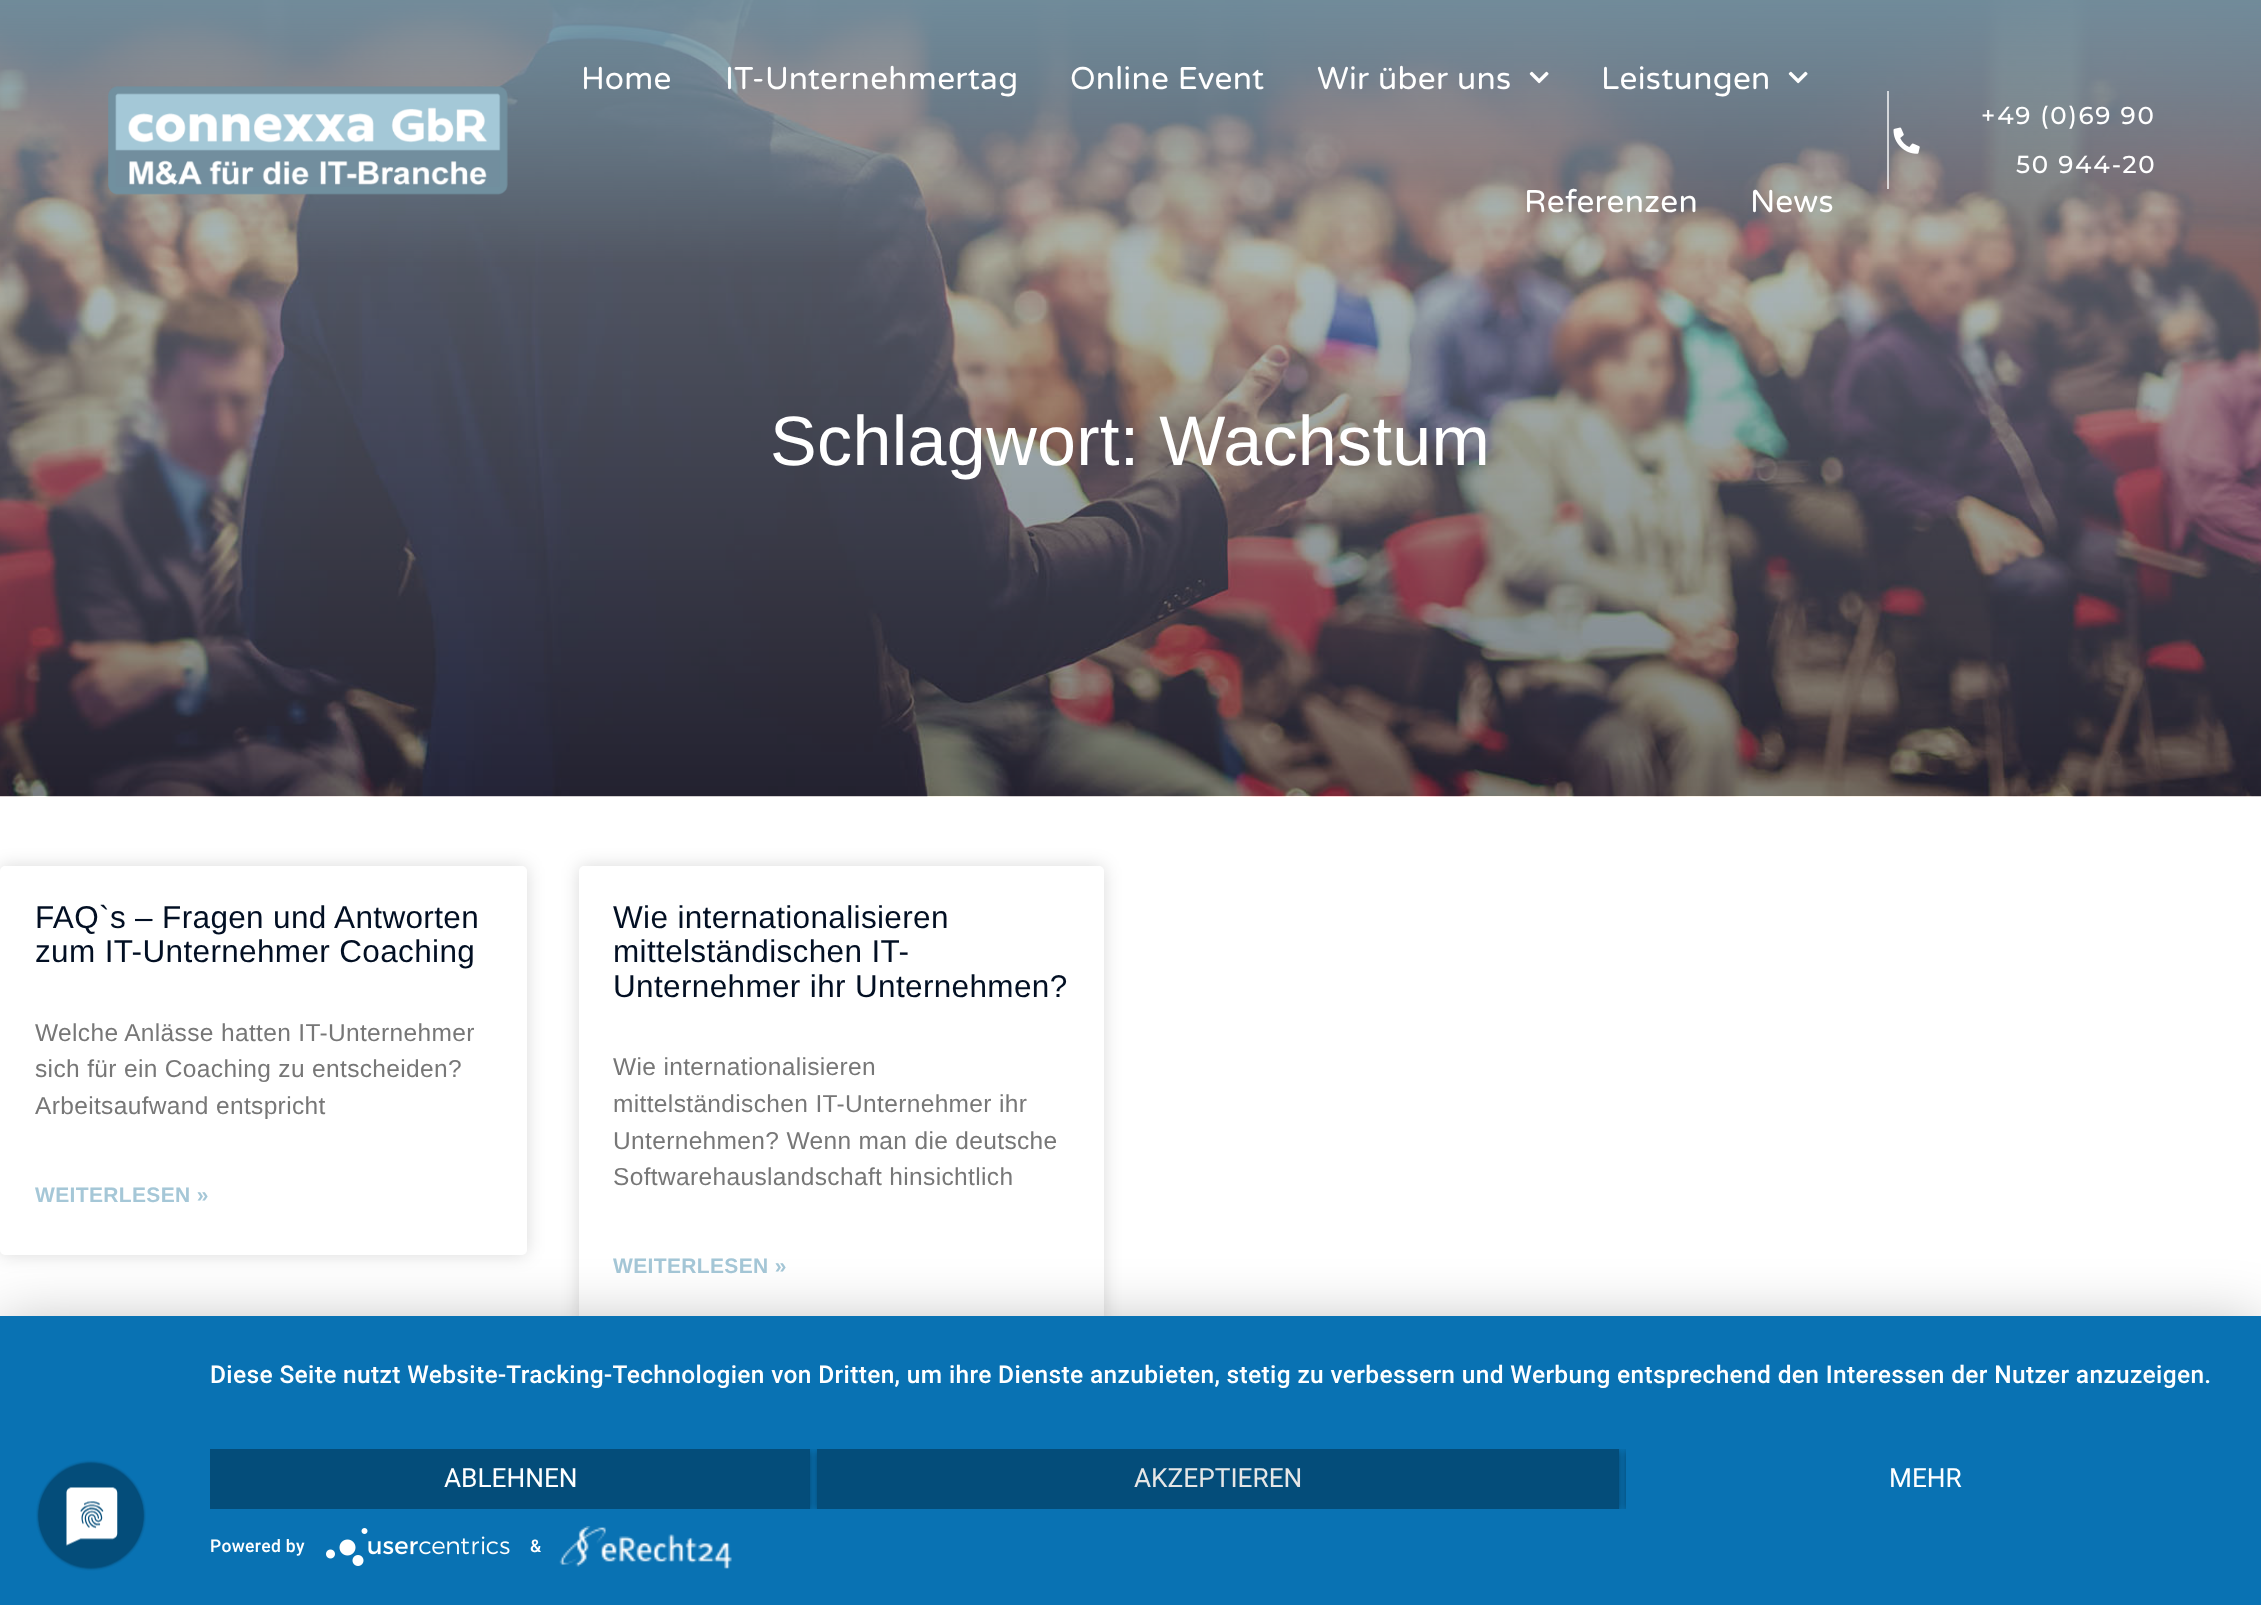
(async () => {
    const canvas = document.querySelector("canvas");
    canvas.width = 2261;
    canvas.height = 1605;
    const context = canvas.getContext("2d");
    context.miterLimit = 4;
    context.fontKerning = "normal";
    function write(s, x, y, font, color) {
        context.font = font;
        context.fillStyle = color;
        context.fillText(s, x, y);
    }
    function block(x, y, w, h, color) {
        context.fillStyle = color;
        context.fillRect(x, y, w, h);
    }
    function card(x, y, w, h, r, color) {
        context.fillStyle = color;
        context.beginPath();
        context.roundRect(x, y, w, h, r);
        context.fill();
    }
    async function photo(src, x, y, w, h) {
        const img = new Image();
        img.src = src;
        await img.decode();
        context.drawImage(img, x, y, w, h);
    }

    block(0, 0, 2261, 1605, "rgb(255, 255, 255)");
    await photo("media/5.png", 0, 0, 2261, 797);
    await photo("media/1.png", 108, 86, 400, 109);
    context.letterSpacing = "0.35px";
    write("Home", 581, 89, "31.5px Varela Round", "rgb(255, 255, 255)");
    write("IT-Unternehmertag", 725, 89, "31.5px Varela Round", "rgb(255, 255, 255)");
    write("Online Event", 1070, 89, "31.5px Varela Round", "rgb(255, 255, 255)");
    write("Wir über uns", 1317, 89, "31.5px Varela Round", "rgb(255, 255, 255)");
    await photo("media/2.png", 1529, 71, 20, 13);
    write("Leistungen", 1601, 89, "31.5px Varela Round", "rgb(255, 255, 255)");
    await photo("media/3.png", 1788, 71, 20, 13);
    write("Referenzen", 1524, 212, "31.5px Varela Round", "rgb(255, 255, 255)");
    write("News", 1750, 212, "31.5px Varela Round", "rgb(255, 255, 255)");
    block(1887, 91, 2, 98, "rgba(255, 255, 255, 0.7)");
    await photo("media/4.png", 1893, 127, 27, 27);
    context.letterSpacing = "1.75px";
    write("+49 (0)69 90", 1981, 124, "500 24.5px Montserrat", "rgb(255, 255, 255)");
    write("50 944-20", 2016, 173, "500 24.5px Montserrat", "rgb(255, 255, 255)");
    context.letterSpacing = "0.35px";
    write("Schlagwort: Wachstum", 770, 465, "70px Liberation Sans", "rgb(255, 255, 255)");
    context.fillStyle = "rgba(0, 0, 0, 0.15)";
    context.filter = "blur(9px)";
    context.beginPath();
    context.roundRect(0, 866, 527, 389, 5);
    context.fill();
    context.filter = "none";
    card(0, 866, 527, 389, 5, "rgb(255, 255, 255)");
    write("FAQ`s – Fragen und Antworten", 35, 928, "31.5px Liberation Sans", "rgb(2, 15, 35)");
    write("zum IT-Unternehmer Coaching", 35, 962, "31.5px Liberation Sans", "rgb(2, 15, 35)");
    write("Welche Anlässe hatten IT-Unternehmer", 35, 1041, "24.5px Liberation Sans", "rgb(119, 119, 119)");
    write("sich für ein Coaching zu entscheiden?", 35, 1077, "24.5px Liberation Sans", "rgb(119, 119, 119)");
    write("Arbeitsaufwand entspricht", 35, 1114, "24.5px Liberation Sans", "rgb(119, 119, 119)");
    write("WEITERLESEN »", 35, 1202, "bold 21px Liberation Sans", "rgb(165, 199, 215)");
    context.fillStyle = "rgba(0, 0, 0, 0.15)";
    context.filter = "blur(9px)";
    context.beginPath();
    context.roundRect(579, 866, 525, 459, 5);
    context.fill();
    context.filter = "none";
    card(579, 866, 525, 459, 5, "rgb(255, 255, 255)");
    write("Wie internationalisieren", 613, 928, "31.5px Liberation Sans", "rgb(2, 15, 35)");
    write("mittelständischen IT-", 613, 962, "31.5px Liberation Sans", "rgb(2, 15, 35)");
    write("Unternehmer ihr Unternehmen?", 613, 997, "31.5px Liberation Sans", "rgb(2, 15, 35)");
    write("Wie internationalisieren", 613, 1075, "24.5px Liberation Sans", "rgb(119, 119, 119)");
    write("mittelständischen IT-Unternehmer ihr", 613, 1112, "24.5px Liberation Sans", "rgb(119, 119, 119)");
    write("Unternehmen? Wenn man die deutsche", 613, 1149, "24.5px Liberation Sans", "rgb(119, 119, 119)");
    write("Softwarehauslandschaft hinsichtlich", 613, 1185, "24.5px Liberation Sans", "rgb(119, 119, 119)");
    write("WEITERLESEN »", 613, 1273, "bold 21px Liberation Sans", "rgb(165, 199, 215)");
    context.fillStyle = "rgba(0, 0, 0, 0.3)";
    context.filter = "blur(31.5px)";
    context.beginPath();
    context.rect(0, 1327, 2261, 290);
    context.fill();
    context.filter = "none";
    block(0, 1316, 2261, 289, "rgb(9, 114, 179)");
    await photo("media/6.png", 36, 1460, 110, 111);
    write("Diese Seite nutzt Website-Tracking-Technologien von Dritten, um ihre Dienste anzubieten, stetig zu verbessern und Werbung entsprechend den Interessen der Nutzer anzuzeigen.", 210, 1383, "500 24.5px Roboto", "rgb(255, 255, 255)");
    context.save();
    context.beginPath();
    context.rect(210, 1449, 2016, 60);
    context.clip();
    context.fillStyle = "rgba(0, 0, 0, 0.4)";
    context.filter = "blur(3.5px)";
    context.beginPath();
    context.rect(210, 1451, 600, 59);
    context.fill();
    context.filter = "none";
    context.restore();
    block(210, 1449, 600, 60, "rgb(4, 77, 122)");
    context.letterSpacing = "0px";
    write("ABLEHNEN", 444, 1487, "26.25px Roboto", "rgb(255, 255, 255)");
    context.save();
    context.beginPath();
    context.rect(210, 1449, 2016, 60);
    context.clip();
    context.fillStyle = "rgba(0, 0, 0, 0.4)";
    context.filter = "blur(3.5px)";
    context.beginPath();
    context.rect(817, 1451, 802, 59);
    context.fill();
    context.filter = "none";
    context.restore();
    block(817, 1449, 802, 60, "rgb(4, 77, 122)");
    write("AKZEPTIEREN", 1134, 1487, "26.25px Roboto", "rgb(230, 230, 230)");
    context.save();
    context.beginPath();
    context.rect(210, 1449, 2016, 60);
    context.clip();
    context.fillStyle = "rgba(0, 0, 0, 0.4)";
    context.filter = "blur(3.5px)";
    context.beginPath();
    context.rect(1626, 1451, 600, 59);
    context.fill();
    context.filter = "none";
    context.restore();
    block(1626, 1449, 600, 60, "rgb(9, 114, 179)");
    write("MEHR", 1889, 1487, "26.25px Roboto", "rgb(255, 255, 255)");
    context.letterSpacing = "0.35px";
    write("Powered by", 210, 1552, "500 17.5px Roboto", "rgb(255, 255, 255)");
    await photo("media/7.png", 326, 1528, 184, 38);
    write("&", 530, 1552, "500 17.5px Roboto", "rgb(255, 255, 255)");
    await photo("media/8.png", 559, 1526, 173, 43);
})();
